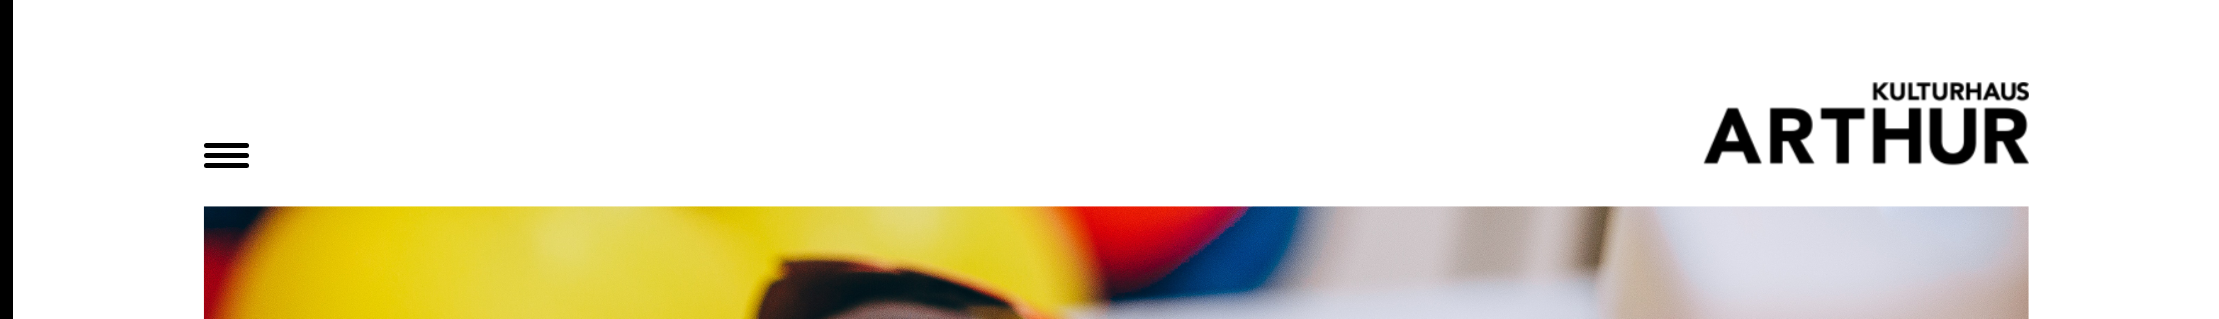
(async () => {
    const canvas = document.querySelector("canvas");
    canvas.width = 2219;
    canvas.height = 319;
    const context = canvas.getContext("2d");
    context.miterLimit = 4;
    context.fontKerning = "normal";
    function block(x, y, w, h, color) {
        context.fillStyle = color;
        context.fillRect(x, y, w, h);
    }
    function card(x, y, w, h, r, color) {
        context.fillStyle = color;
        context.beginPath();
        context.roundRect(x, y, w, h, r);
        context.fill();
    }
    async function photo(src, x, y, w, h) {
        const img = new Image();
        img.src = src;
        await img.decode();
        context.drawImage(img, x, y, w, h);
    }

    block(0, 0, 2219, 319, "rgb(0, 0, 0)");
    block(13, 0, 2206, 319, "rgb(255, 255, 255)");
    card(204, 153, 45, 5, 2.5, "rgb(0, 0, 0)");
    card(204, 143, 45, 5, 2.5, "rgb(0, 0, 0)");
    card(204, 163, 45, 5, 2.5, "rgb(0, 0, 0)");
    await photo("media/1.png", 1703, 82, 326, 84);
    await photo("media/2.png", 203, 206, 1826, 113);
})();
